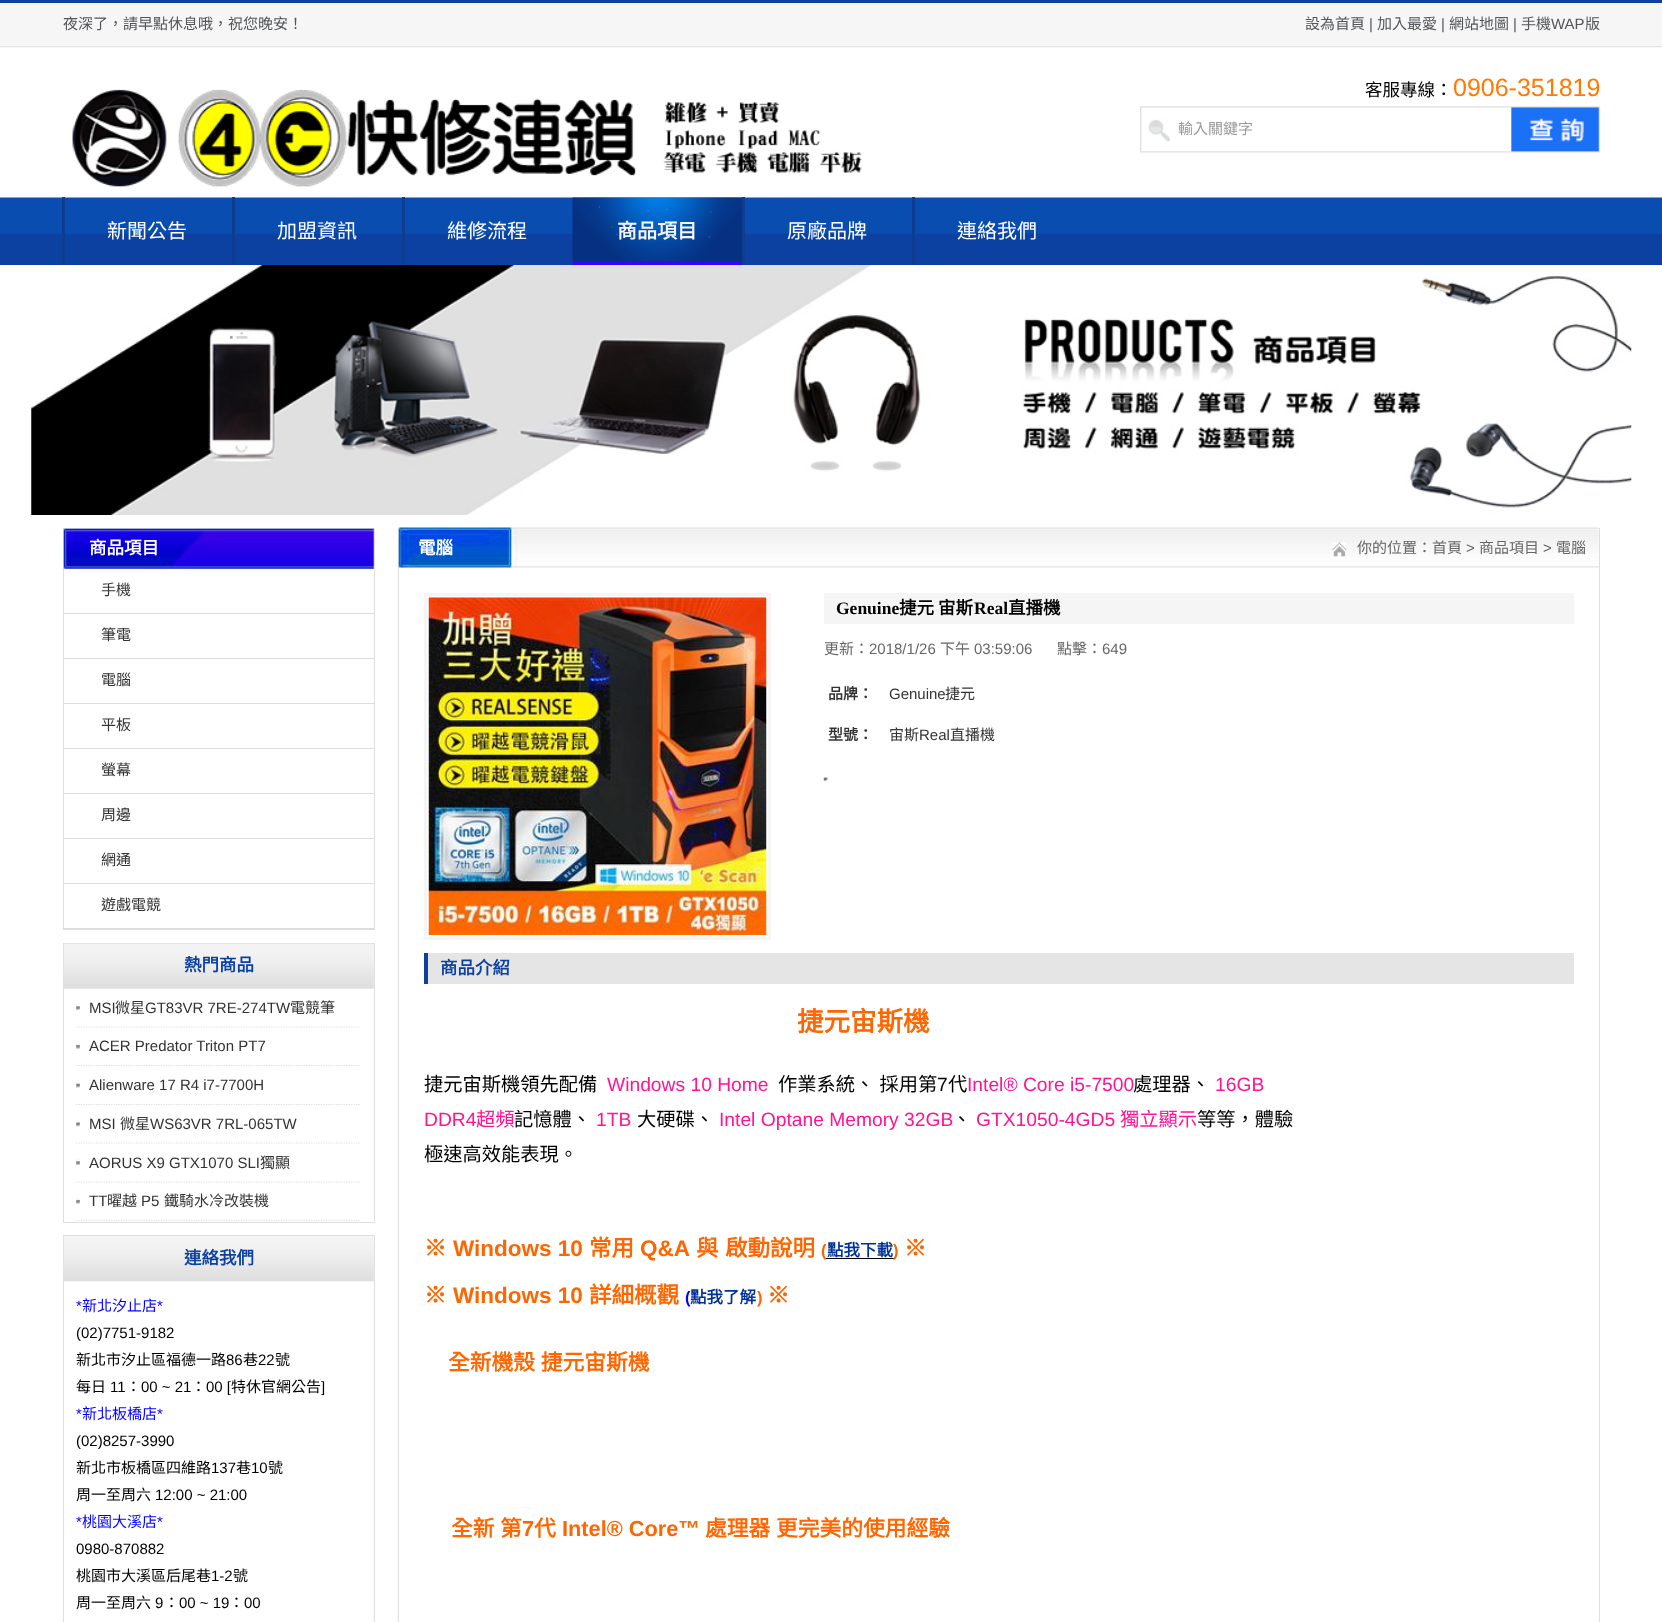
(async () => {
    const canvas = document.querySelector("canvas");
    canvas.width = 1662;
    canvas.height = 1622;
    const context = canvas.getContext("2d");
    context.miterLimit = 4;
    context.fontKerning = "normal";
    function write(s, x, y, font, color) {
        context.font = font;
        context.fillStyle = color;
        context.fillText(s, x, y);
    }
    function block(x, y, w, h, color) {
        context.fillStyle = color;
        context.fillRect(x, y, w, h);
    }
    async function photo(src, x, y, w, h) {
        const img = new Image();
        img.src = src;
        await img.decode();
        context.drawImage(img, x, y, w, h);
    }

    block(0, 0, 1662, 1622, "rgb(255, 255, 255)");
    block(0, 3, 1662, 45, "rgb(246, 246, 246)");
    block(0, 0, 1662, 3, "rgb(12, 64, 161)");
    block(0, 46, 1662, 1, "rgb(229, 229, 229)");
    write("夜深了，請早點休息哦，祝您晚安！", 63, 29, "15px Noto Sans CJK TC", "rgb(83, 85, 90)");
    write("設為首頁", 1305, 29, "15px Noto Sans CJK TC", "rgb(83, 85, 90)");
    write("|", 1369, 29, "15px Liberation Sans", "rgb(83, 85, 90)");
    write("加入最愛", 1377, 29, "15px Noto Sans CJK TC", "rgb(83, 85, 90)");
    write("|", 1441, 29, "15px Liberation Sans", "rgb(83, 85, 90)");
    write("網站地圖", 1449, 29, "15px Noto Sans CJK TC", "rgb(83, 85, 90)");
    write("|", 1513, 29, "15px Liberation Sans", "rgb(83, 85, 90)");
    write("手機", 1521, 29, "15px Noto Sans CJK TC", "rgb(83, 85, 90)");
    write("WAP", 1551, 29, "15px Liberation Sans", "rgb(83, 85, 90)");
    write("版", 1585, 29, "15px Noto Sans CJK TC", "rgb(83, 85, 90)");
    await photo("media/1.png", 72, 89, 790, 98);
    write("客服專線：", 1365, 96, "17.5px Noto Sans CJK TC", "rgb(0, 0, 0)");
    write("0906-351819", 1453, 96, "25px Liberation Sans", "rgb(255, 122, 2)");
    await photo("media/2.png", 1140, 106, 460, 47);
    write("輸入關鍵字", 1178, 134, "15px Noto Sans CJK TC", "rgb(153, 153, 153)");
    await photo("media/3.png", 0, 197, 1662, 68);
    block(62, 197, 3, 68, "rgb(13, 60, 144)");
    write("新聞公告", 107, 238, "20px Noto Sans CJK TC", "rgb(255, 255, 255)");
    block(232, 197, 3, 68, "rgb(13, 60, 144)");
    write("加盟資訊", 277, 238, "20px Noto Sans CJK TC", "rgb(255, 255, 255)");
    block(402, 197, 3, 68, "rgb(13, 60, 144)");
    write("維修流程", 447, 238, "20px Noto Sans CJK TC", "rgb(255, 255, 255)");
    await photo("media/4.png", 572, 197, 170, 68);
    write("商品項目", 617, 238, "bold 20px Noto Sans CJK TC", "rgb(245, 245, 245)");
    block(742, 197, 3, 68, "rgb(13, 60, 144)");
    write("原廠品牌", 787, 238, "20px Noto Sans CJK TC", "rgb(255, 255, 255)");
    block(912, 197, 3, 68, "rgb(13, 60, 144)");
    write("連絡我們", 957, 238, "20px Noto Sans CJK TC", "rgb(255, 255, 255)");
    await photo("media/5.png", 31, 265, 1601, 250);
    context.strokeStyle = "rgb(222, 222, 220)";
    context.strokeRect(63.5, 528.5, 311, 401);
    await photo("media/6.png", 63, 528, 311, 41);
    write("商品項目", 89, 554, "bold 17.5px Noto Sans CJK TC", "rgb(255, 255, 255)");
    block(64, 613, 310, 1, "rgb(221, 221, 221)");
    write("手機", 101, 595, "15px Noto Sans CJK TC", "rgb(51, 51, 51)");
    block(64, 658, 310, 1, "rgb(221, 221, 221)");
    write("筆電", 101, 640, "15px Noto Sans CJK TC", "rgb(51, 51, 51)");
    block(64, 703, 310, 1, "rgb(221, 221, 221)");
    write("電腦", 101, 685, "15px Noto Sans CJK TC", "rgb(51, 51, 51)");
    block(64, 748, 310, 1, "rgb(221, 221, 221)");
    write("平板", 101, 730, "15px Noto Sans CJK TC", "rgb(51, 51, 51)");
    block(64, 793, 310, 1, "rgb(221, 221, 221)");
    write("螢幕", 101, 775, "15px Noto Sans CJK TC", "rgb(51, 51, 51)");
    block(64, 838, 310, 1, "rgb(221, 221, 221)");
    write("周邊", 101, 820, "15px Noto Sans CJK TC", "rgb(51, 51, 51)");
    block(64, 883, 310, 1, "rgb(221, 221, 221)");
    write("網通", 101, 865, "15px Noto Sans CJK TC", "rgb(51, 51, 51)");
    block(64, 928, 310, 1, "rgb(221, 221, 221)");
    write("遊戲電競", 101, 910, "15px Noto Sans CJK TC", "rgb(51, 51, 51)");
    context.strokeRect(63.5, 943.5, 311, 279);
    await photo("media/7.png", 63, 943, 311, 46);
    write("熱門商品", 184, 971, "bold 17.5px Noto Sans CJK TC", "rgb(12, 64, 161)");
    await photo("media/8.png", 76, 1004, 4, 6);
    context.beginPath();
    context.moveTo(76, 1027);
    context.lineTo(361, 1027);
    context.strokeStyle = "rgb(221, 221, 221)";
    context.lineWidth = 1.2;
    context.setLineDash([1.25, 1.25]);
    context.stroke();
    write("MSI", 89, 1013, "15px Liberation Sans", "rgb(51, 51, 51)");
    write("微星", 115, 1013, "15px Noto Sans CJK TC", "rgb(51, 51, 51)");
    write("GT83VR 7RE-274TW", 145, 1013, "15px Liberation Sans", "rgb(51, 51, 51)");
    write("電競筆", 290, 1013, "15px Noto Sans CJK TC", "rgb(51, 51, 51)");
    await photo("media/9.png", 76, 1043, 4, 6);
    context.beginPath();
    context.moveTo(76, 1065.5);
    context.lineTo(361, 1065.5);
    context.stroke();
    write("ACER Predator Triton PT7", 89, 1051, "15px Liberation Sans", "rgb(51, 51, 51)");
    await photo("media/10.png", 76, 1081, 4, 7);
    context.beginPath();
    context.moveTo(76, 1104.5);
    context.lineTo(361, 1104.5);
    context.stroke();
    write("Alienware 17 R4 i7-7700H", 89, 1090, "15px Liberation Sans", "rgb(51, 51, 51)");
    await photo("media/11.png", 76, 1120, 4, 7);
    context.beginPath();
    context.moveTo(76, 1143);
    context.lineTo(361, 1143);
    context.stroke();
    write("MSI", 89, 1129, "15px Liberation Sans", "rgb(51, 51, 51)");
    write("微星", 120, 1129, "15px Noto Sans CJK TC", "rgb(51, 51, 51)");
    write("WS63VR 7RL-065TW", 150, 1129, "15px Liberation Sans", "rgb(51, 51, 51)");
    await photo("media/8.png", 76, 1159, 4, 6);
    context.beginPath();
    context.moveTo(76, 1182);
    context.lineTo(361, 1182);
    context.stroke();
    write("AORUS X9 GTX1070 SLI", 89, 1168, "15px Liberation Sans", "rgb(51, 51, 51)");
    write("獨顯", 260, 1168, "15px Noto Sans CJK TC", "rgb(51, 51, 51)");
    await photo("media/9.png", 76, 1198, 4, 6);
    context.beginPath();
    context.moveTo(76, 1220.5);
    context.lineTo(361, 1220.5);
    context.stroke();
    write("TT", 89, 1206, "15px Liberation Sans", "rgb(51, 51, 51)");
    write("曜越", 107, 1206, "15px Noto Sans CJK TC", "rgb(51, 51, 51)");
    write("P5", 141, 1206, "15px Liberation Sans", "rgb(51, 51, 51)");
    write("鐵騎水冷改裝機", 164, 1206, "15px Noto Sans CJK TC", "rgb(51, 51, 51)");
    context.strokeStyle = "rgb(222, 222, 220)";
    context.lineWidth = 1;
    context.setLineDash([]);
    context.strokeRect(63.5, 1235.5, 311, 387);
    await photo("media/12.png", 63, 1236, 311, 46);
    write("連絡我們", 184, 1264, "bold 17.5px Noto Sans CJK TC", "rgb(12, 64, 161)");
    write("*", 76, 1311, "15px Liberation Sans", "rgb(0, 0, 255)");
    write("新北汐止店", 82, 1311, "15px Noto Sans CJK TC", "rgb(0, 0, 255)");
    write("*", 157, 1311, "15px Liberation Sans", "rgb(0, 0, 255)");
    write("(02)7751-9182", 76, 1338, "15px Liberation Sans", "rgb(0, 0, 0)");
    write("新北市汐止區福德一路", 76, 1365, "15px Noto Sans CJK TC", "rgb(0, 0, 0)");
    write("86", 226, 1365, "15px Liberation Sans", "rgb(0, 0, 0)");
    write("巷", 243, 1365, "15px Noto Sans CJK TC", "rgb(0, 0, 0)");
    write("22", 258, 1365, "15px Liberation Sans", "rgb(0, 0, 0)");
    write("號", 275, 1365, "15px Noto Sans CJK TC", "rgb(0, 0, 0)");
    write("每日", 76, 1392, "15px Noto Sans CJK TC", "rgb(0, 0, 0)");
    write("11", 110, 1392, "15px Liberation Sans", "rgb(0, 0, 0)");
    write("：", 126, 1392, "15px Noto Sans CJK TC", "rgb(0, 0, 0)");
    write("00 ~ 21", 141, 1392, "15px Liberation Sans", "rgb(0, 0, 0)");
    write("：", 191, 1392, "15px Noto Sans CJK TC", "rgb(0, 0, 0)");
    write("00 [", 206, 1392, "15px Liberation Sans", "rgb(0, 0, 0)");
    write("特休官網公告", 231, 1392, "15px Noto Sans CJK TC", "rgb(0, 0, 0)");
    write("]", 321, 1392, "15px Liberation Sans", "rgb(0, 0, 0)");
    write("*", 76, 1419, "15px Liberation Sans", "rgb(0, 0, 255)");
    write("新北板橋店", 82, 1419, "15px Noto Sans CJK TC", "rgb(0, 0, 255)");
    write("*", 157, 1419, "15px Liberation Sans", "rgb(0, 0, 255)");
    write("(02)8257-3990", 76, 1446, "15px Liberation Sans", "rgb(0, 0, 0)");
    write("新北市板橋區四維路", 76, 1473, "15px Noto Sans CJK TC", "rgb(0, 0, 0)");
    write("137", 211, 1473, "15px Liberation Sans", "rgb(0, 0, 0)");
    write("巷", 236, 1473, "15px Noto Sans CJK TC", "rgb(0, 0, 0)");
    write("10", 251, 1473, "15px Liberation Sans", "rgb(0, 0, 0)");
    write("號", 268, 1473, "15px Noto Sans CJK TC", "rgb(0, 0, 0)");
    write("周一至周六", 76, 1500, "15px Noto Sans CJK TC", "rgb(0, 0, 0)");
    write("12:00 ~ 21:00", 155, 1500, "15px Liberation Sans", "rgb(0, 0, 0)");
    write("*", 76, 1527, "15px Liberation Sans", "rgb(0, 0, 255)");
    write("桃園大溪店", 82, 1527, "15px Noto Sans CJK TC", "rgb(0, 0, 255)");
    write("*", 157, 1527, "15px Liberation Sans", "rgb(0, 0, 255)");
    write("0980-870882", 76, 1554, "15px Liberation Sans", "rgb(0, 0, 0)");
    write("桃園市大溪區后尾巷", 76, 1581, "15px Noto Sans CJK TC", "rgb(0, 0, 0)");
    write("1-2", 211, 1581, "15px Liberation Sans", "rgb(0, 0, 0)");
    write("號", 233, 1581, "15px Noto Sans CJK TC", "rgb(0, 0, 0)");
    write("周一至周六", 76, 1608, "15px Noto Sans CJK TC", "rgb(0, 0, 0)");
    write("9", 155, 1608, "15px Liberation Sans", "rgb(0, 0, 0)");
    write("：", 164, 1608, "15px Noto Sans CJK TC", "rgb(0, 0, 0)");
    write("00 ~ 19", 179, 1608, "15px Liberation Sans", "rgb(0, 0, 0)");
    write("：", 229, 1608, "15px Noto Sans CJK TC", "rgb(0, 0, 0)");
    write("00", 244, 1608, "15px Liberation Sans", "rgb(0, 0, 0)");
    block(1599, 528, 1, 1094, "rgb(222, 222, 220)");
    block(398, 528, 1, 1094, "rgb(222, 222, 220)");
    await photo("media/13.png", 398, 527, 1201, 41);
    write("電腦", 418, 554, "bold 17.5px Noto Sans CJK TC", "rgb(255, 255, 255)");
    await photo("media/14.png", 1332, 542, 15, 15);
    write("你的位置：首頁", 1357, 553, "15px Noto Sans CJK TC", "rgb(102, 102, 102)");
    write(">", 1466, 553, "15px Liberation Sans", "rgb(102, 102, 102)");
    write("商品項目", 1479, 553, "15px Noto Sans CJK TC", "rgb(102, 102, 102)");
    write(">", 1543, 553, "15px Liberation Sans", "rgb(102, 102, 102)");
    write("電腦", 1556, 553, "15px Noto Sans CJK TC", "rgb(102, 102, 102)");
    context.strokeStyle = "rgb(245, 245, 245)";
    context.lineWidth = 3;
    context.strokeRect(425.5, 594.5, 344, 344);
    await photo("media/15.png", 428, 597, 339, 338);
    block(824, 593, 750, 31, "rgb(245, 245, 245)");
    write("Genuine", 836, 614, "bold 17.5px Liberation Serif", "rgb(0, 0, 0)");
    write("捷元 宙斯", 899, 614, "bold 17.5px Noto Sans CJK TC", "rgb(0, 0, 0)");
    write("Real", 974, 614, "bold 17.5px Liberation Serif", "rgb(0, 0, 0)");
    write("直播機", 1008, 614, "bold 17.5px Noto Sans CJK TC", "rgb(0, 0, 0)");
    write("更新：", 824, 654, "15px Noto Sans CJK TC", "rgb(102, 102, 102)");
    write("2018/1/26", 869, 654, "15px Liberation Sans", "rgb(102, 102, 102)");
    write("下午", 940, 654, "15px Noto Sans CJK TC", "rgb(102, 102, 102)");
    write("03:59:06", 974, 654, "15px Liberation Sans", "rgb(102, 102, 102)");
    write("點擊：", 1057, 654, "15px Noto Sans CJK TC", "rgb(102, 102, 102)");
    write("649", 1102, 654, "15px Liberation Sans", "rgb(102, 102, 102)");
    write("品牌：", 828, 699, "bold 15px Noto Sans CJK TC", "rgb(51, 51, 51)");
    write("Genuine", 889, 699, "15px Liberation Sans", "rgb(51, 51, 51)");
    write("捷元", 945, 699, "15px Noto Sans CJK TC", "rgb(51, 51, 51)");
    write("型號：", 828, 740, "bold 15px Noto Sans CJK TC", "rgb(51, 51, 51)");
    write("宙斯", 889, 740, "15px Noto Sans CJK TC", "rgb(51, 51, 51)");
    write("Real", 919, 740, "15px Liberation Sans", "rgb(51, 51, 51)");
    write("直播機", 950, 740, "15px Noto Sans CJK TC", "rgb(51, 51, 51)");
    await photo("media/16.png", 823, 777, 5, 5);
    block(428, 953, 1146, 31, "rgb(229, 229, 229)");
    block(424, 953, 4, 31, "rgb(12, 64, 161)");
    write("商品介紹", 440, 974, "bold 17.5px Noto Sans CJK TC", "rgb(12, 64, 161)");
    write("捷元宙斯機", 797, 1031, "bold 26.5px Noto Sans CJK TC", "rgb(255, 102, 0)");
    write("捷元宙斯機領先配備", 424, 1091, "19.25px Noto Sans CJK TC", "rgb(0, 0, 0)");
    write("Windows 10 Home", 607, 1091, "19.25px Liberation Sans", "rgb(255, 20, 147)");
    context.wordSpacing = "1px";
    write("作業系統、 採用第", 778, 1091, "19.25px Noto Sans CJK TC", "rgb(0, 0, 0)");
    context.wordSpacing = "0px";
    write("7", 937, 1091, "19.25px Liberation Sans", "rgb(0, 0, 0)");
    write("代", 948, 1091, "19.25px Noto Sans CJK TC", "rgb(0, 0, 0)");
    write("Intel® Core i5-7500", 967, 1091, "19.25px Liberation Sans", "rgb(255, 20, 147)");
    write("處理器、", 1133, 1091, "19.25px Noto Sans CJK TC", "rgb(0, 0, 0)");
    write("16GB", 1215, 1091, "19.25px Liberation Sans", "rgb(255, 20, 147)");
    write("DDR4", 424, 1126, "19.25px Liberation Sans", "rgb(255, 20, 147)");
    write("超頻", 476, 1126, "19.25px Noto Sans CJK TC", "rgb(255, 20, 147)");
    write("記憶體、", 514, 1126, "19.25px Noto Sans CJK TC", "rgb(0, 0, 0)");
    write("1TB", 596, 1126, "19.25px Liberation Sans", "rgb(255, 20, 147)");
    write("大硬碟、", 637, 1126, "19.25px Noto Sans CJK TC", "rgb(0, 0, 0)");
    write("Intel Optane Memory 32GB", 719, 1126, "19.25px Liberation Sans", "rgb(255, 20, 147)");
    write("、", 952, 1126, "19.25px Noto Sans CJK TC", "rgb(0, 0, 0)");
    write("GTX1050-4GD5", 976, 1126, "19.25px Liberation Sans", "rgb(255, 20, 147)");
    write("獨立顯示", 1120, 1126, "19.25px Noto Sans CJK TC", "rgb(255, 20, 147)");
    write("等等，體驗", 1197, 1126, "19.25px Noto Sans CJK TC", "rgb(0, 0, 0)");
    write("極速高效能表現。", 424, 1161, "19.25px Noto Sans CJK TC", "rgb(0, 0, 0)");
    write("※", 424, 1256, "bold 22.5px Noto Sans CJK TC", "rgb(255, 102, 0)");
    write("Windows 10", 453, 1256, "bold 22.5px Liberation Sans", "rgb(255, 102, 0)");
    write("常用", 589, 1256, "bold 22.5px Noto Sans CJK TC", "rgb(255, 102, 0)");
    write("Q&A", 640, 1256, "bold 22.5px Liberation Sans", "rgb(255, 102, 0)");
    write("與", 696, 1256, "bold 22.5px Noto Sans CJK TC", "rgb(255, 102, 0)");
    write("啟動說明", 725, 1256, "bold 22.5px Noto Sans CJK TC", "rgb(255, 102, 0)");
    write("(", 821, 1256, "bold 16.5px Liberation Sans", "rgb(255, 102, 0)");
    write("點我下載", 827, 1256, "bold 16.5px Noto Sans CJK TC", "rgb(0, 51, 153)");
    block(826, 1258, 68, 1, "rgb(0, 0, 0)");
    write(")", 893, 1256, "bold 16.5px Liberation Sans", "rgb(255, 102, 0)");
    write("※", 904, 1256, "bold 22.5px Noto Sans CJK TC", "rgb(255, 102, 0)");
    write("※", 424, 1303, "bold 22.5px Noto Sans CJK TC", "rgb(255, 102, 0)");
    write("Windows 10", 453, 1303, "bold 22.5px Liberation Sans", "rgb(255, 102, 0)");
    write("詳細概觀", 589, 1303, "bold 22.5px Noto Sans CJK TC", "rgb(255, 102, 0)");
    write("(", 685, 1303, "bold 16.5px Liberation Sans", "rgb(0, 0, 255)");
    write("點我了解", 690, 1303, "bold 16.5px Noto Sans CJK TC", "rgb(0, 51, 153)");
    write(")", 757, 1303, "bold 16.5px Liberation Sans", "rgb(255, 102, 0)");
    write("※", 767, 1303, "bold 22.5px Noto Sans CJK TC", "rgb(255, 102, 0)");
    context.wordSpacing = "1px";
    write("全新機殼 捷元宙斯機", 448, 1370, "bold 21.75px Noto Sans CJK TC", "rgb(255, 102, 0)");
    context.wordSpacing = "0px";
    write("全新", 451, 1536, "bold 21.75px Noto Sans CJK TC", "rgb(255, 102, 0)");
    write("第", 500, 1536, "bold 21.75px Noto Sans CJK TC", "rgb(255, 102, 0)");
    write("7", 522, 1536, "bold 21.75px Liberation Sans", "rgb(255, 102, 0)");
    write("代", 534, 1536, "bold 21.75px Noto Sans CJK TC", "rgb(255, 102, 0)");
    write("Intel® Core™", 562, 1536, "bold 21.75px Liberation Sans", "rgb(255, 102, 0)");
    write("處理器", 705, 1536, "bold 21.75px Noto Sans CJK TC", "rgb(255, 102, 0)");
    write("更完美的使用經驗", 776, 1536, "bold 21.75px Noto Sans CJK TC", "rgb(255, 102, 0)");
})();
